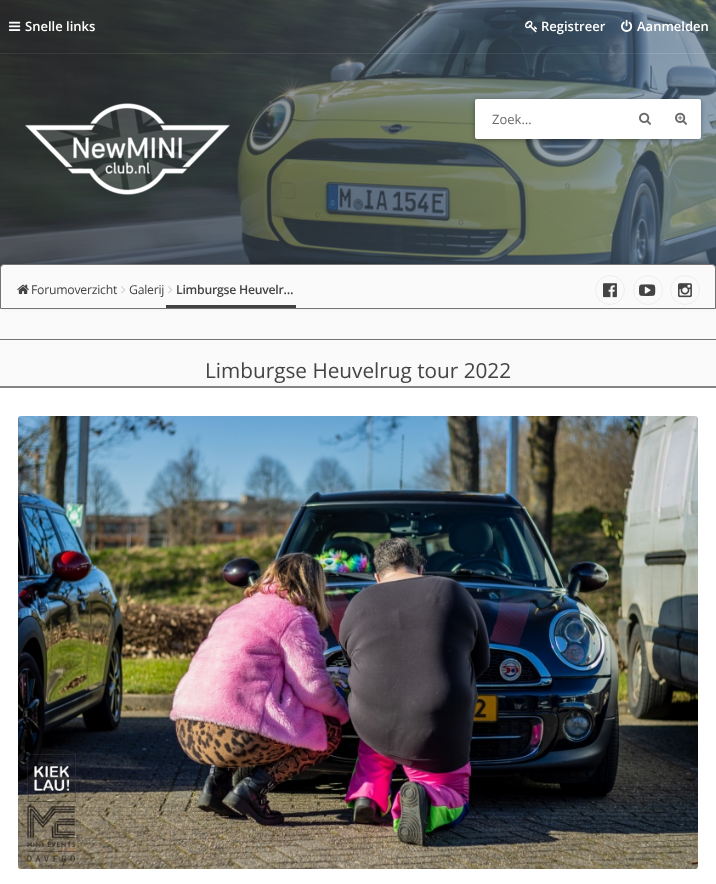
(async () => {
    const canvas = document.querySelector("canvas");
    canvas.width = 716;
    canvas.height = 884;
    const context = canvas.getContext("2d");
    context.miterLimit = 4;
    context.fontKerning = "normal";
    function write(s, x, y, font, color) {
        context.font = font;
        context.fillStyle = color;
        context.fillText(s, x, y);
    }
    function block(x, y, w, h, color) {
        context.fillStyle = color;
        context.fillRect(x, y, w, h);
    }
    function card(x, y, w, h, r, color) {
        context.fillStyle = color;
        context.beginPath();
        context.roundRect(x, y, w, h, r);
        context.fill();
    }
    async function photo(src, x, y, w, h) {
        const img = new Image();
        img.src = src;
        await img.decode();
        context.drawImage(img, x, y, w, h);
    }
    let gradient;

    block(0, 0, 716, 884, "rgb(250, 250, 250)");
    gradient = context.createLinearGradient(-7.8, 21, 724, 288);
    gradient.addColorStop(0, "rgb(55, 55, 55)");
    gradient.addColorStop(1, "rgb(89, 118, 142)");
    context.fillStyle = gradient;
    context.fillRect(0, 0, 716, 268);
    gradient = context.createLinearGradient(-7.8, 21, 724, 288);
    gradient.addColorStop(0, "rgb(85, 85, 85)");
    gradient.addColorStop(1, "rgb(114, 139, 159)");
    context.fillStyle = gradient;
    context.fillRect(0, 53, 716, 1);
    await photo("media/4.png", 0, 0, 716, 268);
    await photo("media/1.png", 9, 21, 12, 10);
    write("Snelle links", 25, 31, "600 13px Open Sans", "rgb(255, 255, 255)");
    await photo("media/2.png", 525, 20, 13, 13);
    write("Registreer", 541, 31, "600 13px Open Sans", "rgb(255, 255, 255)");
    await photo("media/3.png", 621, 19, 12, 13);
    write("Aanmelden", 637, 31, "600 13px Open Sans", "rgb(255, 255, 255)");
    await photo("media/5.png", 25, 103, 205, 92);
    context.fillStyle = "rgba(0, 0, 0, 0.35)";
    context.filter = "blur(2.5px)";
    context.beginPath();
    context.roundRect(475, 100, 226, 40, 2);
    context.fill();
    context.filter = "none";
    card(475, 99, 226, 40, 2, "rgb(255, 255, 255)");
    write("Zoek…", 492, 124, "13px Open Sans", "rgb(105, 105, 105)");
    await photo("media/6.png", 639, 112, 12, 13);
    await photo("media/7.png", 675, 112, 12, 13);
    context.fillStyle = "rgba(0, 0, 0, 0.1)";
    context.filter = "blur(2.5px)";
    context.beginPath();
    context.roundRect(0, 262, 716, 45, 4);
    context.fill();
    context.filter = "none";
    context.fillStyle = "rgb(250, 250, 250)";
    context.beginPath();
    context.roundRect(0.5, 264.5, 715, 44, [3.5, 3.5, 0, 0]);
    context.fill();
    context.strokeStyle = "rgb(116, 114, 114)";
    context.stroke();
    await photo("media/8.png", 17, 284, 12, 10);
    context.letterSpacing = "-0.25px";
    write("Forumoverzicht", 31, 294, "12.25px Open Sans", "rgb(68, 68, 68)");
    await photo("media/9.png", 121, 286, 5, 8);
    write("Galerij", 129, 294, "12.25px Open Sans", "rgb(68, 68, 68)");
    await photo("media/9.png", 168, 286, 5, 8);
    block(166, 305, 130, 3, "rgb(65, 65, 65)");
    write("Limburgse Heuvelr…", 176, 294, "600 12.25px Open Sans", "rgb(68, 68, 68)");
    context.beginPath();
    context.arc(610, 290, 14.5, 0, Math.PI * 2);
    context.strokeStyle = "rgb(238, 238, 238)";
    context.stroke();
    await photo("media/10.png", 603, 283, 14, 15);
    context.beginPath();
    context.arc(648, 290, 14.5, 0, Math.PI * 2);
    context.stroke();
    await photo("media/11.png", 639, 284, 17, 12);
    context.beginPath();
    context.arc(685, 290, 14.5, 0, Math.PI * 2);
    context.stroke();
    await photo("media/12.png", 678, 283, 14, 15);
    block(0, 339, 716, 1, "rgb(116, 114, 114)");
    context.letterSpacing = "0px";
    write("Limburgse Heuvelrug tour 2022", 205, 378, "20.75px Open Sans", "rgb(68, 68, 68)");
    block(0, 388, 716, 496, "rgb(255, 255, 255)");
    block(0, 386, 716, 2, "rgb(133, 131, 131)");
    await photo("media/13.png", 18, 416, 680, 453);
})();
